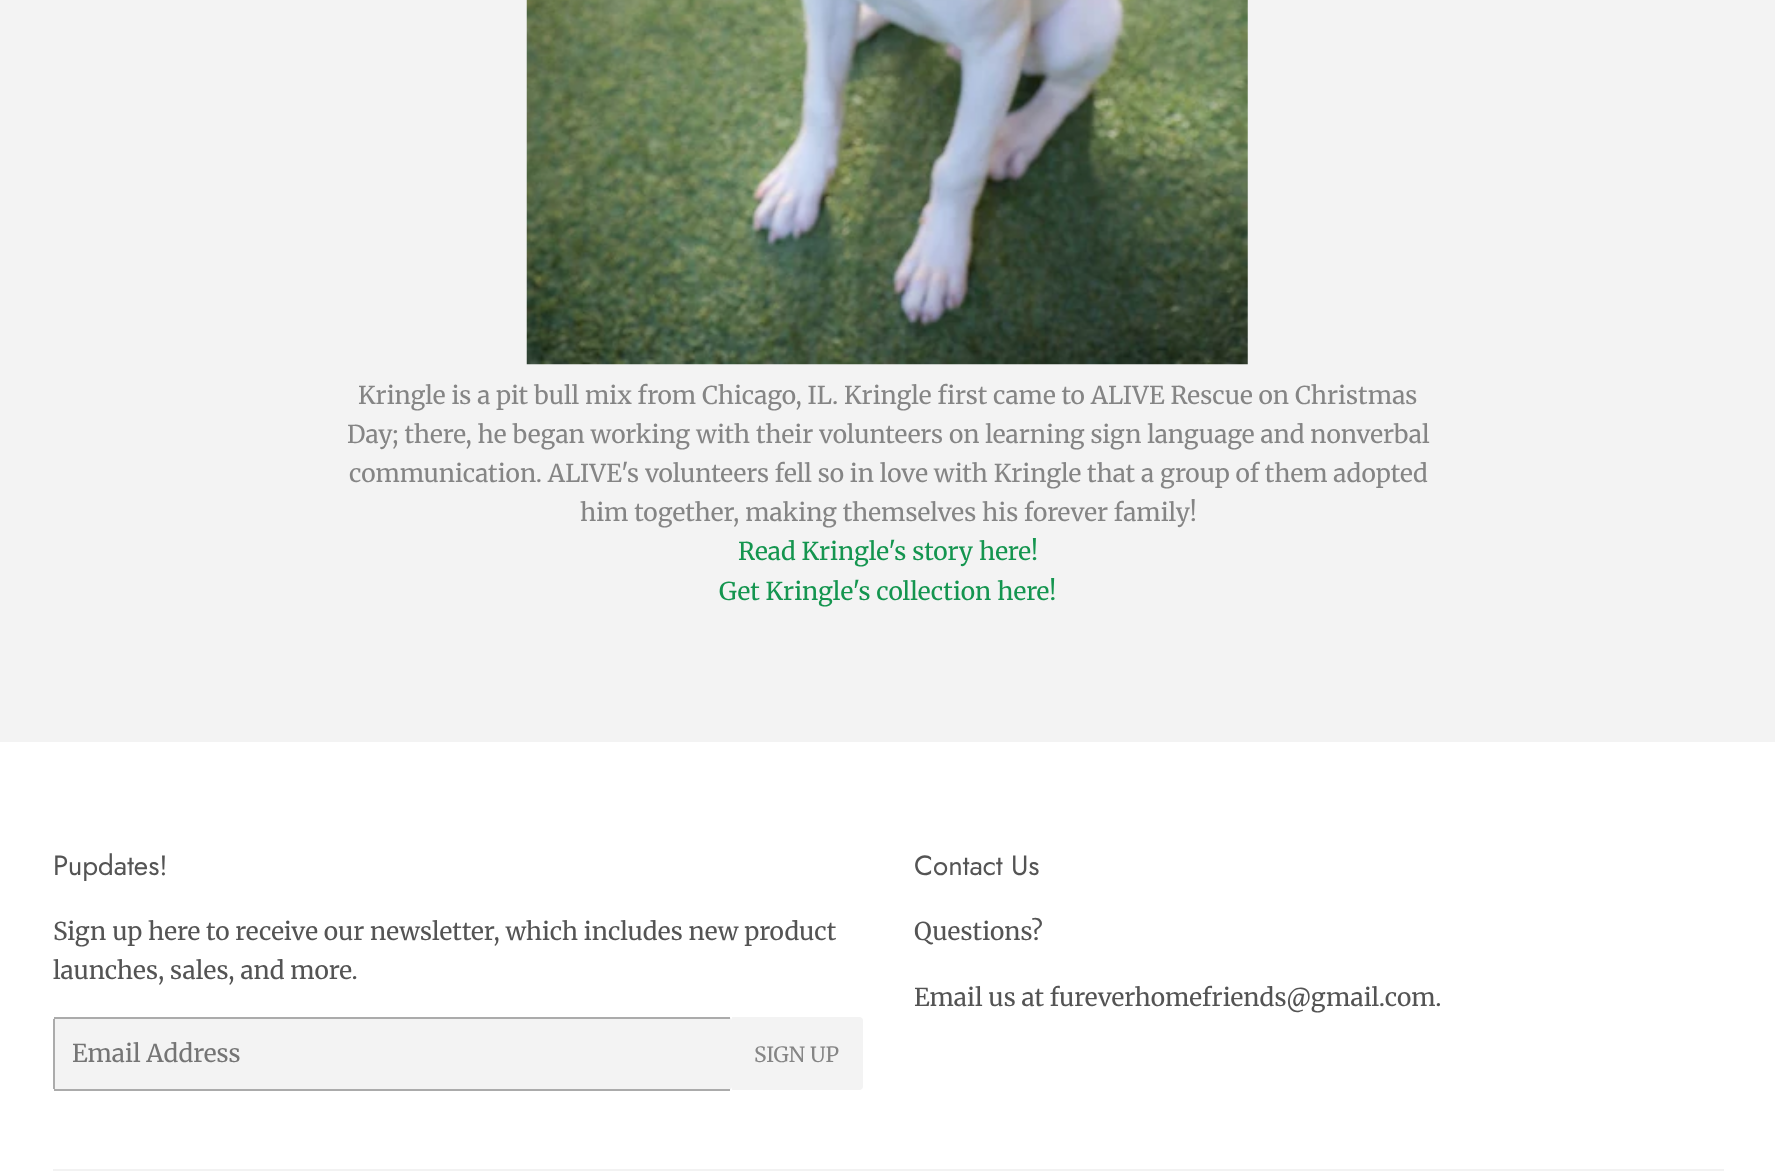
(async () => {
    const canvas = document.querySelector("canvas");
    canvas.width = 1775;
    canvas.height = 1173;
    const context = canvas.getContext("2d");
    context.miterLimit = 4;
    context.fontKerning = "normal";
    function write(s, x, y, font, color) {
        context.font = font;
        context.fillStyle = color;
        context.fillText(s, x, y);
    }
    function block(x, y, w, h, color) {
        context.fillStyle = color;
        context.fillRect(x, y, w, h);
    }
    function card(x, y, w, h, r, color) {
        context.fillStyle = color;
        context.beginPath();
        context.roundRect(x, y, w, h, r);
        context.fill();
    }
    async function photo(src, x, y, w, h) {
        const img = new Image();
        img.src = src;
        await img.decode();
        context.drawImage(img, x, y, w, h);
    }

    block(0, 0, 1775, 1173, "rgb(243, 243, 243)");
    await photo("media/1.png", 526, 0, 722, 365);
    write("Kringle is a pit bull mix from Chicago, IL. Kringle first came to ALIVE Rescue on Christmas", 358, 404, "24.5px Merriweather", "rgb(133, 133, 133)");
    write("Day; there, he began working with their volunteers on learning sign language and nonverbal", 347, 443, "24.5px Merriweather", "rgb(133, 133, 133)");
    write("communication. ALIVE's volunteers fell so in love with Kringle that a group of them adopted", 349, 482, "24.5px Merriweather", "rgb(133, 133, 133)");
    write("him together, making themselves his forever family!", 580, 521, "24.5px Merriweather", "rgb(133, 133, 133)");
    write("Read Kringle's story here!", 738, 560, "24.5px Merriweather", "rgb(20, 149, 79)");
    write("Get Kringle's collection here!", 719, 600, "24.5px Merriweather", "rgb(20, 149, 79)");
    block(0, 742, 1775, 431, "rgb(255, 255, 255)");
    write("Pupdates!", 53, 875, "27.75px Jost", "rgb(84, 84, 84)");
    write("Sign up here to receive our newsletter, which includes new product", 53, 940, "24.5px Merriweather", "rgb(84, 84, 84)");
    write("launches, sales, and more.", 53, 979, "24.5px Merriweather", "rgb(84, 84, 84)");
    card(53, 1017, 679, 73, 4, "rgb(243, 243, 243)");
    block(54, 1017, 676, 2, "rgb(171, 171, 171)");
    block(54, 1089, 676, 2, "rgb(171, 171, 171)");
    block(53, 1019, 2, 70, "rgb(171, 171, 171)");
    write("Email Address", 72, 1062, "24.5px Merriweather", "rgb(117, 117, 117)");
    context.fillStyle = "rgb(243, 243, 243)";
    context.beginPath();
    context.roundRect(732, 1017, 131, 73, [0, 4, 4, 0]);
    context.fill();
    write("SIGN UP", 754, 1062, "21px Merriweather", "rgb(133, 133, 133)");
    write("Contact Us", 914, 875, "27.75px Jost", "rgb(84, 84, 84)");
    write("Questions?", 914, 940, "24.5px Merriweather", "rgb(84, 84, 84)");
    write("Email us at fureverhomefriends@gmail.com.", 914, 1006, "24.5px Merriweather", "rgb(84, 84, 84)");
    block(53, 1169, 1671, 2, "rgb(242, 242, 242)");
})();
